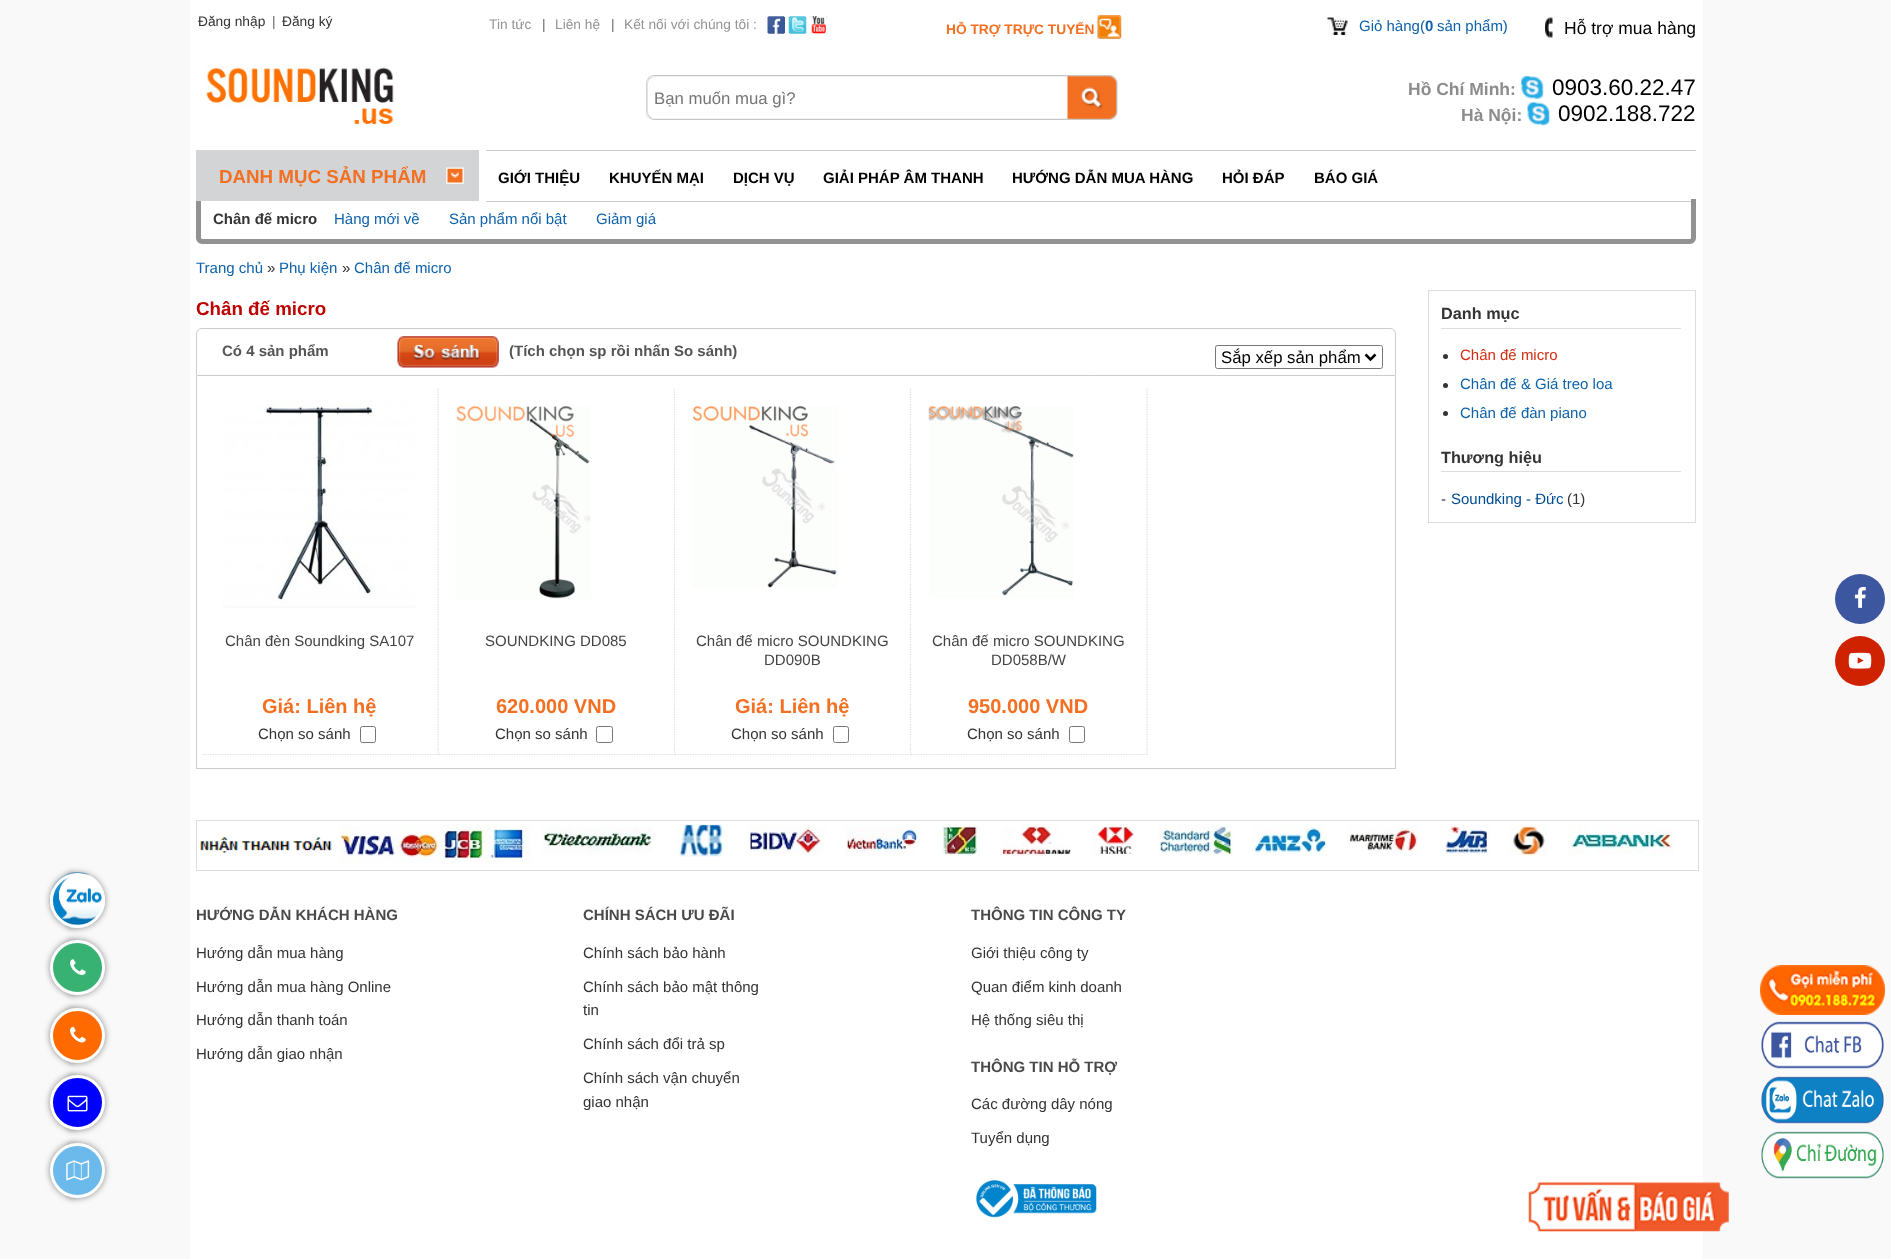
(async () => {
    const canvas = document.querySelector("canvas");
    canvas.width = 1891;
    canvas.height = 1259;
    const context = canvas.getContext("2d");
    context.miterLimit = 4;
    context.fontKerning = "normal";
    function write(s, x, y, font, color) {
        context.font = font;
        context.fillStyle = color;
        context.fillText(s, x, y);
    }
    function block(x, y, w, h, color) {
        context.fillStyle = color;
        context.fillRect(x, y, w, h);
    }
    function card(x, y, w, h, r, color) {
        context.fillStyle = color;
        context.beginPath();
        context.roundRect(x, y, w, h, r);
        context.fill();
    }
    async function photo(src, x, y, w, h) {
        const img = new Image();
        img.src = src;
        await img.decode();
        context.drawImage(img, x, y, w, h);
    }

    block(0, 0, 1891, 1259, "rgb(249, 249, 249)");
    block(190, 0, 1513, 1259, "rgb(255, 255, 255)");
    write("Đăng nhập", 198, 26, "13.75px Liberation Sans", "rgb(51, 51, 51)");
    write("|", 272, 26, "13.75px Liberation Sans", "rgb(102, 102, 102)");
    write("Đăng ký", 282, 26, "13.75px Liberation Sans", "rgb(51, 51, 51)");
    write("Tin tức", 489, 29, "13.75px Liberation Sans", "rgb(148, 148, 148)");
    write("|", 542, 29, "13.75px Liberation Sans", "rgb(102, 102, 102)");
    write("Liên hệ", 555, 29, "13.75px Liberation Sans", "rgb(148, 148, 148)");
    write("|", 611, 29, "13.75px Liberation Sans", "rgb(102, 102, 102)");
    write("Kết nối với chúng tôi :", 624, 29, "13.75px Liberation Sans", "rgb(148, 148, 148)");
    await photo("media/1.png", 767, 16, 18, 18);
    await photo("media/2.png", 788, 16, 19, 18);
    await photo("media/3.png", 810, 16, 18, 18);
    await photo("media/4.png", 1327, 17, 21, 18);
    write("Giỏ hàng(", 1359, 31, "15px Liberation Sans", "rgb(14, 98, 170)");
    write("0", 1425, 31, "bold 15px Liberation Sans", "rgb(14, 98, 170)");
    write("sản phẩm)", 1437, 31, "15px Liberation Sans", "rgb(14, 98, 170)");
    write("HỖ TRỢ TRỰC TUYẾN", 946, 34, "bold 13.75px Liberation Sans", "rgb(243, 111, 33)");
    await photo("media/5.png", 1097, 15, 25, 24);
    await photo("media/6.png", 1545, 17, 8, 21);
    write("Hỗ trợ mua hàng", 1564, 34, "17.5px Liberation Sans", "rgb(0, 0, 0)");
    write("Hồ Chí Minh:", 1408, 95, "bold 17.5px Liberation Sans", "rgb(140, 140, 140)");
    await photo("media/7.png", 1521, 76, 23, 23);
    write("0903.60.22.47", 1552, 95, "22.5px Liberation Sans", "rgb(0, 0, 0)");
    write("Hà Nội:", 1461, 121, "bold 17.5px Liberation Sans", "rgb(140, 140, 140)");
    await photo("media/8.png", 1527, 102, 24, 24);
    write("0902.188.722", 1558, 121, "22.5px Liberation Sans", "rgb(0, 0, 0)");
    await photo("media/9.png", 205, 63, 189, 61);
    await photo("media/10.png", 646, 75, 472, 45);
    write("Bạn muốn mua gì?", 654, 104, "16.75px Liberation Sans", "rgb(117, 117, 117)");
    block(486, 201, 1210, 1, "rgb(204, 204, 204)");
    context.fillStyle = "rgb(146, 146, 146)";
    context.beginPath();
    context.moveTo(196, 199);
    context.lineTo(1696, 199);
    context.lineTo(1696, 238);
    context.bezierCurveTo(1696, 241, 1693, 244, 1690, 244);
    context.lineTo(202, 244);
    context.bezierCurveTo(199, 244, 196, 241, 196, 238);
    context.closePath();
    context.moveTo(201, 199);
    context.lineTo(1691, 199);
    context.lineTo(1691, 238);
    context.bezierCurveTo(1691, 238, 1691, 239, 1690, 239);
    context.lineTo(202, 239);
    context.bezierCurveTo(202, 239, 201, 238, 201, 238);
    context.closePath();
    context.fill("evenodd");
    block(196, 150, 283, 51, "rgb(211, 212, 214)");
    await photo("media/11.png", 446, 167, 18, 17);
    write("DANH MỤC SẢN PHẨM", 219, 183, "bold 18.75px Liberation Sans", "rgb(243, 111, 33)");
    block(486, 150, 1210, 1, "rgb(204, 204, 204)");
    write("GIỚI THIỆU", 498, 183, "bold 15px Liberation Sans", "rgb(0, 0, 0)");
    write("KHUYẾN MẠI", 609, 183, "bold 15px Liberation Sans", "rgb(0, 0, 0)");
    write("DỊCH VỤ", 733, 183, "bold 15px Liberation Sans", "rgb(0, 0, 0)");
    write("GIẢI PHÁP ÂM THANH", 823, 183, "bold 15px Liberation Sans", "rgb(0, 0, 0)");
    write("HƯỚNG DẪN MUA HÀNG", 1012, 183, "bold 15px Liberation Sans", "rgb(0, 0, 0)");
    write("HỎI ĐÁP", 1222, 183, "bold 15px Liberation Sans", "rgb(0, 0, 0)");
    write("BÁO GIÁ", 1314, 183, "bold 15px Liberation Sans", "rgb(0, 0, 0)");
    write("Chân đế micro", 213, 224, "bold 15px Liberation Sans", "rgb(51, 51, 51)");
    write("Hàng mới về", 334, 224, "15px Liberation Sans", "rgb(14, 98, 170)");
    write("Sản phẩm nổi bật", 449, 224, "15px Liberation Sans", "rgb(14, 98, 170)");
    write("Giảm giá", 596, 224, "15px Liberation Sans", "rgb(14, 98, 170)");
    write("Trang chủ", 196, 273, "15px Liberation Sans", "rgb(14, 98, 170)");
    write("»", 267, 273, "15px Liberation Sans", "rgb(51, 51, 51)");
    write("Phụ kiện", 279, 273, "15px Liberation Sans", "rgb(14, 98, 170)");
    write("»", 342, 273, "15px Liberation Sans", "rgb(51, 51, 51)");
    write("Chân đế micro", 354, 273, "15px Liberation Sans", "rgb(14, 98, 170)");
    write("Chân đế micro", 196, 315, "bold 18.75px Liberation Sans", "rgb(189, 3, 3)");
    context.beginPath();
    context.roundRect(196.5, 328.5, 1199, 47, [5.5, 5.5, 0, 0]);
    context.strokeStyle = "rgb(204, 204, 204)";
    context.stroke();
    write("Có 4 sản phẩm", 222, 356, "bold 15px Liberation Sans", "rgb(85, 85, 85)");
    await photo("media/12.png", 397, 336, 102, 32);
    write("(Tích chọn sp rồi nhấn So sánh)", 509, 356, "bold 15px Liberation Sans", "rgb(85, 85, 85)");
    context.beginPath();
    context.roundRect(1215.5, 345.5, 167, 23, 2);
    context.strokeStyle = "rgb(118, 118, 118)";
    context.stroke();
    context.beginPath();
    context.moveTo(1365.5, 354.5);
    context.lineTo(1370.5, 359.5);
    context.lineTo(1375.5, 354.5);
    context.strokeStyle = "rgb(0, 0, 0)";
    context.lineWidth = 2.5;
    context.stroke();
    write("Sắp xếp sản phẩm", 1221, 363, "16.75px Liberation Sans", "rgb(0, 0, 0)");
    block(1395, 376, 1, 393, "rgb(204, 204, 204)");
    block(196, 768, 1200, 1, "rgb(204, 204, 204)");
    block(196, 376, 1, 393, "rgb(204, 204, 204)");
    context.beginPath();
    context.moveTo(438, 389);
    context.lineTo(438, 755);
    context.strokeStyle = "rgb(221, 221, 221)";
    context.lineWidth = 1.2;
    context.setLineDash([1.25, 1.25]);
    context.stroke();
    context.beginPath();
    context.moveTo(202.5, 754.5);
    context.lineTo(439, 754.5);
    context.stroke();
    context.strokeStyle = "rgb(255, 255, 255)";
    context.lineWidth = 4;
    context.setLineDash([]);
    context.strokeRect(212, 391, 216, 361);
    await photo("media/13.png", 223, 400, 193, 208);
    write("Chân đèn Soundking SA107", 225, 646, "15px Liberation Sans", "rgb(68, 68, 68)");
    write("Giá: Liên hệ", 262, 713, "bold 20px Liberation Sans", "rgb(243, 111, 33)");
    write("Chọn so sánh", 258, 739, "15px Liberation Sans", "rgb(51, 51, 51)");
    context.beginPath();
    context.roundRect(360.5, 726.5, 15, 16, 2);
    context.strokeStyle = "rgb(118, 118, 118)";
    context.lineWidth = 1;
    context.stroke();
    context.beginPath();
    context.moveTo(674.5, 389);
    context.lineTo(674.5, 755);
    context.strokeStyle = "rgb(221, 221, 221)";
    context.lineWidth = 1.2;
    context.setLineDash([1.25, 1.25]);
    context.stroke();
    context.beginPath();
    context.moveTo(439, 754.5);
    context.lineTo(675, 754.5);
    context.stroke();
    context.strokeStyle = "rgb(255, 255, 255)";
    context.lineWidth = 4;
    context.setLineDash([]);
    context.strokeRect(448, 391, 216, 361);
    await photo("media/14.png", 456, 406, 135, 193);
    write("SOUNDKING DD085", 485, 646, "15px Liberation Sans", "rgb(68, 68, 68)");
    write("620.000 VND", 496, 713, "bold 20px Liberation Sans", "rgb(243, 111, 33)");
    write("Chọn so sánh", 495, 739, "15px Liberation Sans", "rgb(51, 51, 51)");
    context.beginPath();
    context.roundRect(596.5, 726.5, 16, 16, 2);
    context.strokeStyle = "rgb(118, 118, 118)";
    context.lineWidth = 1;
    context.stroke();
    context.beginPath();
    context.moveTo(910.5, 389);
    context.lineTo(910.5, 755);
    context.strokeStyle = "rgb(221, 221, 221)";
    context.lineWidth = 1.2;
    context.setLineDash([1.25, 1.25]);
    context.stroke();
    context.beginPath();
    context.moveTo(675, 754.5);
    context.lineTo(911, 754.5);
    context.stroke();
    context.strokeStyle = "rgb(255, 255, 255)";
    context.lineWidth = 4;
    context.setLineDash([]);
    context.strokeRect(685, 391, 216, 361);
    await photo("media/15.png", 692, 406, 145, 182);
    write("Chân đế micro SOUNDKING", 696, 646, "15px Liberation Sans", "rgb(68, 68, 68)");
    write("DD090B", 764, 665, "15px Liberation Sans", "rgb(68, 68, 68)");
    write("Giá: Liên hệ", 735, 713, "bold 20px Liberation Sans", "rgb(243, 111, 33)");
    write("Chọn so sánh", 731, 739, "15px Liberation Sans", "rgb(51, 51, 51)");
    context.beginPath();
    context.roundRect(833.5, 726.5, 15, 16, 2);
    context.strokeStyle = "rgb(118, 118, 118)";
    context.lineWidth = 1;
    context.stroke();
    context.beginPath();
    context.moveTo(1147, 389);
    context.lineTo(1147, 755);
    context.strokeStyle = "rgb(221, 221, 221)";
    context.lineWidth = 1.2;
    context.setLineDash([1.25, 1.25]);
    context.stroke();
    context.beginPath();
    context.moveTo(911, 754.5);
    context.lineTo(1147.5, 754.5);
    context.stroke();
    context.strokeStyle = "rgb(255, 255, 255)";
    context.lineWidth = 4;
    context.setLineDash([]);
    context.strokeRect(921, 391, 216, 361);
    await photo("media/16.png", 928, 406, 146, 192);
    write("Chân đế micro SOUNDKING", 932, 646, "15px Liberation Sans", "rgb(68, 68, 68)");
    write("DD058B/W", 991, 665, "15px Liberation Sans", "rgb(68, 68, 68)");
    write("950.000 VND", 968, 713, "bold 20px Liberation Sans", "rgb(243, 111, 33)");
    write("Chọn so sánh", 967, 739, "15px Liberation Sans", "rgb(51, 51, 51)");
    context.beginPath();
    context.roundRect(1069.5, 726.5, 15, 16, 2);
    context.strokeStyle = "rgb(118, 118, 118)";
    context.lineWidth = 1;
    context.stroke();
    context.strokeStyle = "rgb(221, 221, 221)";
    context.strokeRect(1428.5, 290.5, 267, 232);
    block(1441, 328, 240, 1, "rgb(221, 221, 221)");
    write("Danh mục", 1441, 319, "bold 16.25px Liberation Sans", "rgb(51, 51, 51)");
    context.fillStyle = "rgb(52, 52, 52)";
    context.beginPath();
    context.arc(1445.5, 356.5, 2.5, 0, Math.PI * 2);
    context.fill();
    write("Chân đế micro", 1460, 360, "15px Liberation Sans", "rgb(210, 45, 17)");
    context.fillStyle = "rgb(52, 52, 52)";
    context.beginPath();
    context.arc(1445.5, 385.5, 2.5, 0, Math.PI * 2);
    context.fill();
    write("Chân đế & Giá treo loa", 1460, 389, "15px Liberation Sans", "rgb(14, 98, 170)");
    context.fillStyle = "rgb(52, 52, 52)";
    context.beginPath();
    context.arc(1445.5, 413.5, 2.5, 0, Math.PI * 2);
    context.fill();
    write("Chân đế đàn piano", 1460, 418, "15px Liberation Sans", "rgb(14, 98, 170)");
    block(1441, 471, 240, 1, "rgb(221, 221, 221)");
    write("Thương hiệu", 1441, 463, "bold 16.25px Liberation Sans", "rgb(51, 51, 51)");
    write("-", 1441, 504, "15px Liberation Sans", "rgb(51, 51, 51)");
    write("Soundking - Đức", 1451, 504, "15px Liberation Sans", "rgb(0, 75, 145)");
    write("(1)", 1567, 504, "15px Liberation Sans", "rgb(51, 51, 51)");
    context.fillStyle = "rgb(60, 86, 159)";
    context.beginPath();
    context.arc(1860, 599, 25, 0, Math.PI * 2);
    context.fill();
    await photo("media/17.png", 1854, 587, 12, 21);
    context.fillStyle = "rgb(207, 34, 0)";
    context.beginPath();
    context.arc(1860, 661, 25, 0, Math.PI * 2);
    context.fill();
    await photo("media/18.png", 1848, 652, 24, 17);
    context.fillStyle = "rgb(136, 136, 136)";
    context.filter = "blur(3px)";
    context.beginPath();
    context.roundRect(69, 873, 5, 55, 2.5);
    context.fill();
    context.filter = "none";
    card(69, 873, 5, 55, 2.5, "rgb(255, 255, 255)");
    context.fillStyle = "rgb(136, 136, 136)";
    context.filter = "blur(3px)";
    context.beginPath();
    context.roundRect(50, 873, 55, 55, 27.5);
    context.fill();
    context.filter = "none";
    await photo("media/19.png", 50, 872, 55, 56);
    context.beginPath();
    context.arc(77.5, 900.5, 26, 0, Math.PI * 2);
    context.strokeStyle = "rgb(255, 255, 255)";
    context.lineWidth = 3;
    context.stroke();
    context.filter = "blur(3px)";
    context.beginPath();
    context.roundRect(69, 940, 5, 55, 2.5);
    context.fill();
    context.filter = "none";
    card(69, 940, 5, 55, 2.5, "rgb(255, 255, 255)");
    context.fillStyle = "rgb(136, 136, 136)";
    context.filter = "blur(3px)";
    context.beginPath();
    context.roundRect(50, 940, 55, 55, 27.5);
    context.fill();
    context.filter = "none";
    context.fillStyle = "rgb(55, 178, 114)";
    context.beginPath();
    context.arc(77.5, 967.5, 26, 0, Math.PI * 2);
    context.fill();
    context.stroke();
    await photo("media/20.png", 70, 959, 16, 16);
    context.fillStyle = "rgb(136, 136, 136)";
    context.filter = "blur(3px)";
    context.beginPath();
    context.roundRect(69, 1008, 5, 55, 2.5);
    context.fill();
    context.filter = "none";
    card(69, 1008, 5, 55, 2.5, "rgb(255, 255, 255)");
    context.fillStyle = "rgb(136, 136, 136)";
    context.filter = "blur(3px)";
    context.beginPath();
    context.roundRect(50, 1008, 55, 55, 27.5);
    context.fill();
    context.filter = "none";
    context.fillStyle = "rgb(255, 106, 0)";
    context.beginPath();
    context.arc(77.5, 1035.5, 26, 0, Math.PI * 2);
    context.fill();
    context.stroke();
    await photo("media/21.png", 70, 1026, 16, 17);
    context.fillStyle = "rgb(136, 136, 136)";
    context.filter = "blur(3px)";
    context.beginPath();
    context.roundRect(69, 1075, 5, 55, 2.5);
    context.fill();
    context.filter = "none";
    card(69, 1075, 5, 55, 2.5, "rgb(255, 255, 255)");
    context.fillStyle = "rgb(136, 136, 136)";
    context.filter = "blur(3px)";
    context.beginPath();
    context.roundRect(50, 1075, 55, 55, 27.5);
    context.fill();
    context.filter = "none";
    context.fillStyle = "rgb(0, 0, 255)";
    context.beginPath();
    context.arc(77.5, 1102.5, 26, 0, Math.PI * 2);
    context.fill();
    context.stroke();
    await photo("media/22.png", 67, 1095, 21, 17);
    context.fillStyle = "rgb(136, 136, 136)";
    context.filter = "blur(3px)";
    context.beginPath();
    context.roundRect(69, 1143, 5, 55, 2.5);
    context.fill();
    context.filter = "none";
    card(69, 1143, 5, 55, 2.5, "rgb(255, 255, 255)");
    context.fillStyle = "rgb(136, 136, 136)";
    context.filter = "blur(3px)";
    context.beginPath();
    context.roundRect(50, 1143, 55, 55, 27.5);
    context.fill();
    context.filter = "none";
    context.fillStyle = "rgb(107, 186, 235)";
    context.beginPath();
    context.arc(77.5, 1170.5, 26, 0, Math.PI * 2);
    context.fill();
    context.stroke();
    await photo("media/23.png", 66, 1160, 24, 21);
    context.strokeStyle = "rgb(221, 221, 221)";
    context.lineWidth = 1;
    context.strokeRect(196.5, 820.5, 1502, 50);
    await photo("media/24.png", 199, 824, 1475, 39);
    write("HƯỚNG DẪN KHÁCH HÀNG", 196, 920, "bold 15px Liberation Sans", "rgb(73, 73, 74)");
    write("Hướng dẫn mua hàng", 196, 958, "15px Liberation Sans", "rgb(51, 51, 51)");
    write("Hướng dẫn mua hàng Online", 196, 992, "15px Liberation Sans", "rgb(51, 51, 51)");
    write("Hướng dẫn thanh toán", 196, 1025, "15px Liberation Sans", "rgb(51, 51, 51)");
    write("Hướng dẫn giao nhận", 196, 1059, "15px Liberation Sans", "rgb(51, 51, 51)");
    write("CHÍNH SÁCH ƯU ĐÃI", 583, 920, "bold 15px Liberation Sans", "rgb(73, 73, 74)");
    write("Chính sách bảo hành", 583, 958, "15px Liberation Sans", "rgb(51, 51, 51)");
    write("Chính sách bảo mật thông", 583, 992, "15px Liberation Sans", "rgb(51, 51, 51)");
    write("tin", 583, 1015, "15px Liberation Sans", "rgb(51, 51, 51)");
    write("Chính sách đổi trả sp", 583, 1049, "15px Liberation Sans", "rgb(51, 51, 51)");
    write("Chính sách vận chuyển", 583, 1083, "15px Liberation Sans", "rgb(51, 51, 51)");
    write("giao nhận", 583, 1107, "15px Liberation Sans", "rgb(51, 51, 51)");
    write("THÔNG TIN CÔNG TY", 971, 920, "bold 15px Liberation Sans", "rgb(73, 73, 74)");
    write("Giới thiệu công ty", 971, 958, "15px Liberation Sans", "rgb(51, 51, 51)");
    write("Quan điểm kinh doanh", 971, 992, "15px Liberation Sans", "rgb(51, 51, 51)");
    write("Hệ thống siêu thị", 971, 1025, "15px Liberation Sans", "rgb(51, 51, 51)");
    write("THÔNG TIN HỖ TRỢ", 971, 1072, "bold 15px Liberation Sans", "rgb(73, 73, 74)");
    write("Các đường dây nóng", 971, 1109, "15px Liberation Sans", "rgb(51, 51, 51)");
    write("Tuyển dụng", 971, 1143, "15px Liberation Sans", "rgb(51, 51, 51)");
    await photo("media/25.png", 976, 1175, 121, 48);
    await photo("media/26.png", 1760, 965, 125, 50);
    await photo("media/27.png", 1761, 1021, 123, 48);
    await photo("media/28.png", 1761, 1076, 123, 48);
    await photo("media/29.png", 1761, 1131, 123, 48);
    await photo("media/30.png", 1528, 1182, 201, 50);
})();
